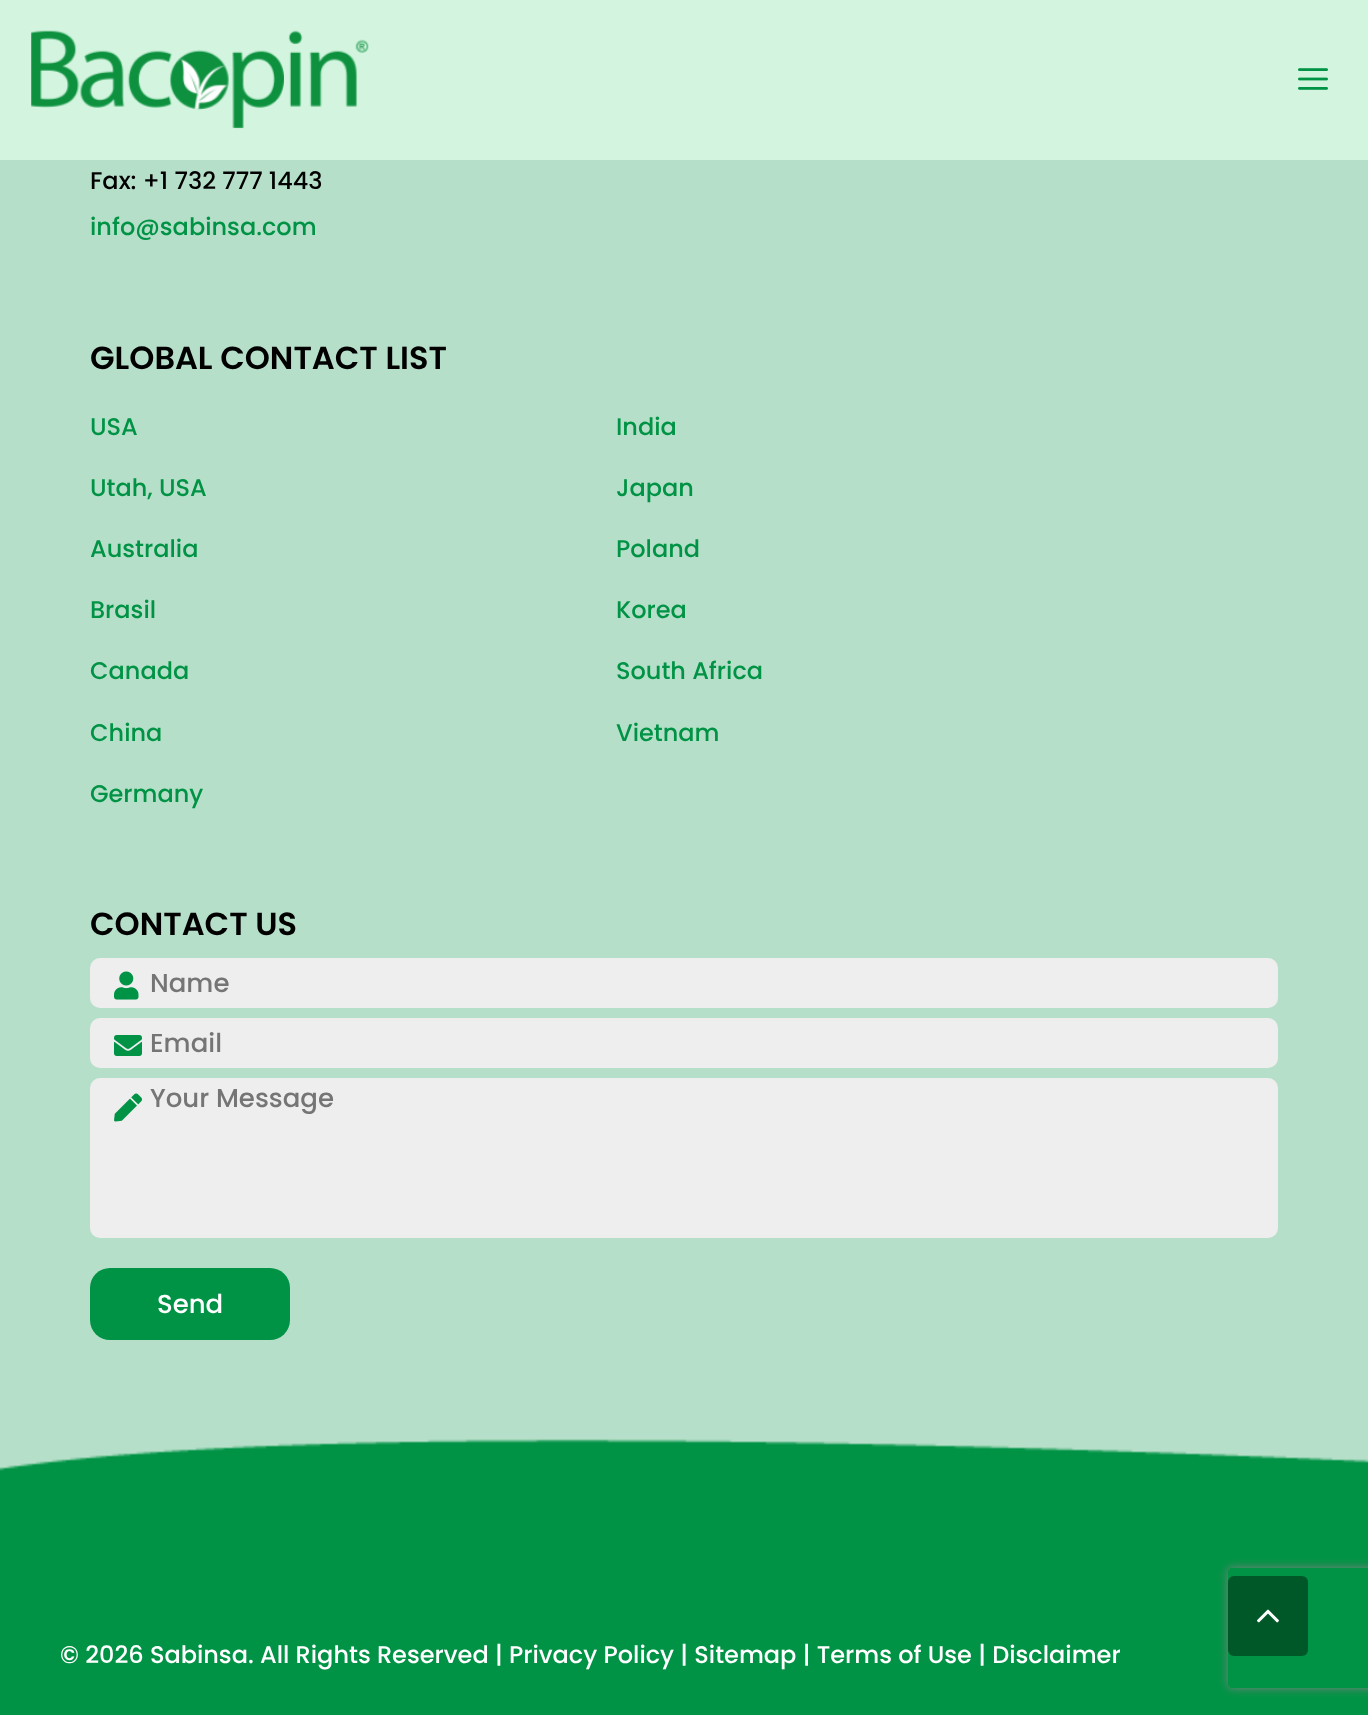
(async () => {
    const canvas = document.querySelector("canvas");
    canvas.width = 1368;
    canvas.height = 1715;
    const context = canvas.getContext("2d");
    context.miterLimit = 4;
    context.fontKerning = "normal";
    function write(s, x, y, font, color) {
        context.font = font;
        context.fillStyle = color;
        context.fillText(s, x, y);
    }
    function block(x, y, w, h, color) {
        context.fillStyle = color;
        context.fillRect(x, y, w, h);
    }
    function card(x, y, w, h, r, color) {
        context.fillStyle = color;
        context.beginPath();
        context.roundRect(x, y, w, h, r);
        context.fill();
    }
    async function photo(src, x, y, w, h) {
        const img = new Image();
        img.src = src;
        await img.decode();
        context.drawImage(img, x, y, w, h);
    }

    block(0, 0, 1368, 1715, "rgb(182, 223, 201)");
    block(0, 0, 1368, 160, "rgb(211, 245, 224)");
    await photo("media/1.png", 31, 30, 338, 99);
    await photo("media/2.png", 1298, 68, 30, 22);
    write("Fax: +1 732 777 1443", 90, 189, "500 24px Poppins", "rgb(0, 0, 0)");
    write("info@sabinsa.com", 90, 235, "500 24px Poppins", "rgb(0, 147, 69)");
    write("GLOBAL CONTACT LIST", 90, 369, "600 32px Poppins", "rgb(0, 0, 0)");
    write("USA", 90, 435, "500 24px Poppins", "rgb(0, 147, 69)");
    write("India", 616, 435, "500 24px Poppins", "rgb(0, 147, 69)");
    write("Utah, USA", 90, 496, "500 24px Poppins", "rgb(0, 147, 69)");
    write("Japan", 616, 496, "500 24px Poppins", "rgb(0, 147, 69)");
    write("Australia", 90, 557, "500 24px Poppins", "rgb(0, 147, 69)");
    write("Poland", 616, 557, "500 24px Poppins", "rgb(0, 147, 69)");
    write("Brasil", 90, 618, "500 24px Poppins", "rgb(0, 147, 69)");
    write("Korea", 616, 618, "500 24px Poppins", "rgb(0, 147, 69)");
    write("Canada", 90, 679, "500 24px Poppins", "rgb(0, 147, 69)");
    write("South Africa", 616, 679, "500 24px Poppins", "rgb(0, 147, 69)");
    write("China", 90, 741, "500 24px Poppins", "rgb(0, 147, 69)");
    write("Vietnam", 616, 741, "500 24px Poppins", "rgb(0, 147, 69)");
    write("Germany", 90, 802, "500 24px Poppins", "rgb(0, 147, 69)");
    write("CONTACT US", 90, 935, "600 32px Poppins", "rgb(0, 0, 0)");
    card(90, 958, 1188, 50, 10, "rgb(238, 238, 238)");
    await photo("media/3.png", 114, 971, 25, 29);
    write("Name", 150, 992, "500 26px Poppins", "rgb(117, 117, 117)");
    card(90, 1018, 1188, 50, 10, "rgb(238, 238, 238)");
    await photo("media/4.png", 114, 1035, 28, 21);
    write("Email", 150, 1052, "500 26px Poppins", "rgb(117, 117, 117)");
    card(90, 1078, 1188, 160, 10, "rgb(238, 238, 238)");
    await photo("media/5.png", 114, 1093, 28, 29);
    write("Your Message", 150, 1107, "500 26px Poppins", "rgb(117, 117, 117)");
    card(90, 1268, 200, 72, 20, "rgb(0, 147, 69)");
    write("Send", 157, 1313, "500 26px Poppins", "rgb(255, 255, 255)");
    block(0, 1592, 1368, 123, "rgb(0, 147, 69)");
    await photo("media/6.png", 0, 1439, 1368, 153);
    write("© 2026 Sabinsa. All Rights Reserved | Privacy Policy | Sitemap | Terms of Use | Disclaimer", 60, 1663, "500 24px Poppins", "rgb(255, 255, 255)");
    context.save();
    context.beginPath();
    context.moveTo(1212, 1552);
    context.lineTo(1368, 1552);
    context.lineTo(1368, 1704);
    context.lineTo(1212, 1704);
    context.closePath();
    context.moveTo(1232, 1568);
    context.lineTo(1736, 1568);
    context.bezierCurveTo(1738, 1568, 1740, 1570, 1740, 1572);
    context.lineTo(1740, 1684);
    context.bezierCurveTo(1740, 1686, 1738, 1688, 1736, 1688);
    context.lineTo(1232, 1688);
    context.bezierCurveTo(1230, 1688, 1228, 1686, 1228, 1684);
    context.lineTo(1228, 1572);
    context.bezierCurveTo(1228, 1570, 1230, 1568, 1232, 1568);
    context.closePath();
    context.clip("evenodd");
    context.fillStyle = "rgb(128, 128, 128)";
    context.filter = "blur(5px)";
    context.beginPath();
    context.roundRect(1228, 1568, 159, 120, 4);
    context.fill();
    context.filter = "none";
    context.restore();
    card(1228, 1576, 80, 80, 6, "rgb(0, 88, 41)");
    await photo("media/7.png", 1257, 1609, 22, 14);
})();
